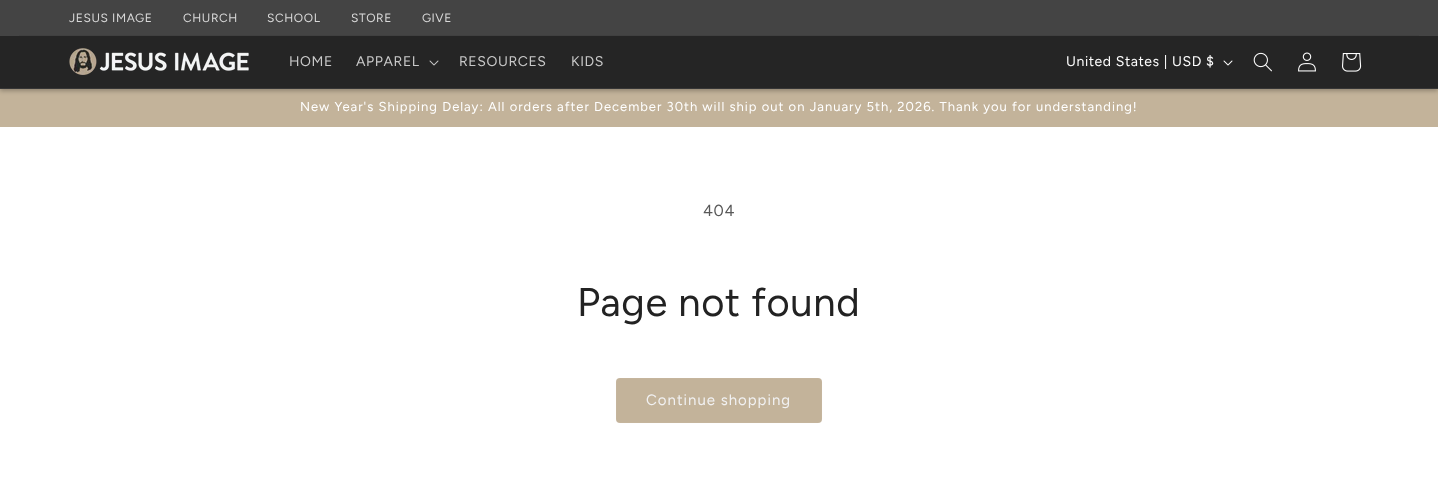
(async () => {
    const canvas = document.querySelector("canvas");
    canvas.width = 1438;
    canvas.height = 477;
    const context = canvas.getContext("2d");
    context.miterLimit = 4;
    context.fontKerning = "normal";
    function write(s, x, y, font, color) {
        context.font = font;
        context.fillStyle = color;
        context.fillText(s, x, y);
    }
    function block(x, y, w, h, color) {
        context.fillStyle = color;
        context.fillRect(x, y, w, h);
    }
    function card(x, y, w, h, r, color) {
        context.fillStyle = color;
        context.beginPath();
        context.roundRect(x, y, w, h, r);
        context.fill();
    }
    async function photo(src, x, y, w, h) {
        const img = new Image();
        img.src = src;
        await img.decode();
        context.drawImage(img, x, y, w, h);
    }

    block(0, 0, 1438, 477, "rgb(255, 255, 255)");
    block(0, 89, 1438, 38, "rgb(195, 179, 154)");
    context.fillStyle = "rgba(0, 0, 0, 0.26)";
    context.filter = "blur(2px)";
    context.beginPath();
    context.rect(0, 38, 1438, 53);
    context.fill();
    context.filter = "none";
    block(0, 0, 1438, 36, "rgb(68, 68, 68)");
    block(19, 35, 1400, 1, "rgb(64, 64, 64)");
    context.letterSpacing = "0.6px";
    write("JESUS IMAGE", 69, 22, "12px Figtree", "rgb(217, 217, 217)");
    write("CHURCH", 183, 22, "12px Figtree", "rgb(217, 217, 217)");
    write("SCHOOL", 267, 22, "12px Figtree", "rgb(217, 217, 217)");
    write("STORE", 351, 22, "12px Figtree", "rgb(217, 217, 217)");
    write("GIVE", 422, 22, "12px Figtree", "rgb(217, 217, 217)");
    block(0, 36, 1438, 52, "rgb(37, 37, 37)");
    block(0, 88, 1438, 1, "rgb(54, 54, 54)");
    await photo("media/1.png", 69, 48, 180, 27);
    write("HOME", 289, 66, "14px Figtree", "rgb(201, 201, 201)");
    write("APPAREL", 356, 66, "14px Figtree", "rgb(201, 201, 201)");
    await photo("media/2.png", 429, 60, 10, 6);
    write("RESOURCES", 459, 66, "14px Figtree", "rgb(201, 201, 201)");
    write("KIDS", 571, 66, "14px Figtree", "rgb(201, 201, 201)");
    write("United States | USD $", 1066, 66, "14px Figtree", "rgb(255, 255, 255)");
    await photo("media/3.png", 1223, 60, 10, 6);
    await photo("media/4.png", 1253, 52, 19, 20);
    await photo("media/5.png", 1298, 52, 18, 20);
    await photo("media/6.png", 1342, 53, 20, 19);
    context.letterSpacing = "1px";
    write("New Year's Shipping Delay: All orders after December 30th will ship out on January 5th, 2026. Thank you for understanding!", 300, 111, "13px Figtree", "rgb(255, 255, 255)");
    context.letterSpacing = "0.6px";
    write("404", 703, 216, "16px Figtree", "rgb(89, 89, 89)");
    write("Page not found", 577, 316, "40px Figtree", "rgb(34, 34, 34)");
    card(616, 378, 206, 45, 4, "rgb(195, 179, 154)");
    context.beginPath();
    context.roundRect(616.15, 378.15, 205.7, 44.7, 3.85);
    context.strokeStyle = "rgba(241, 241, 242, 0.2)";
    context.lineWidth = 0.3;
    context.stroke();
    context.letterSpacing = "1px";
    write("Continue shopping", 646, 405, "15px Figtree", "rgb(241, 241, 242)");
})();
